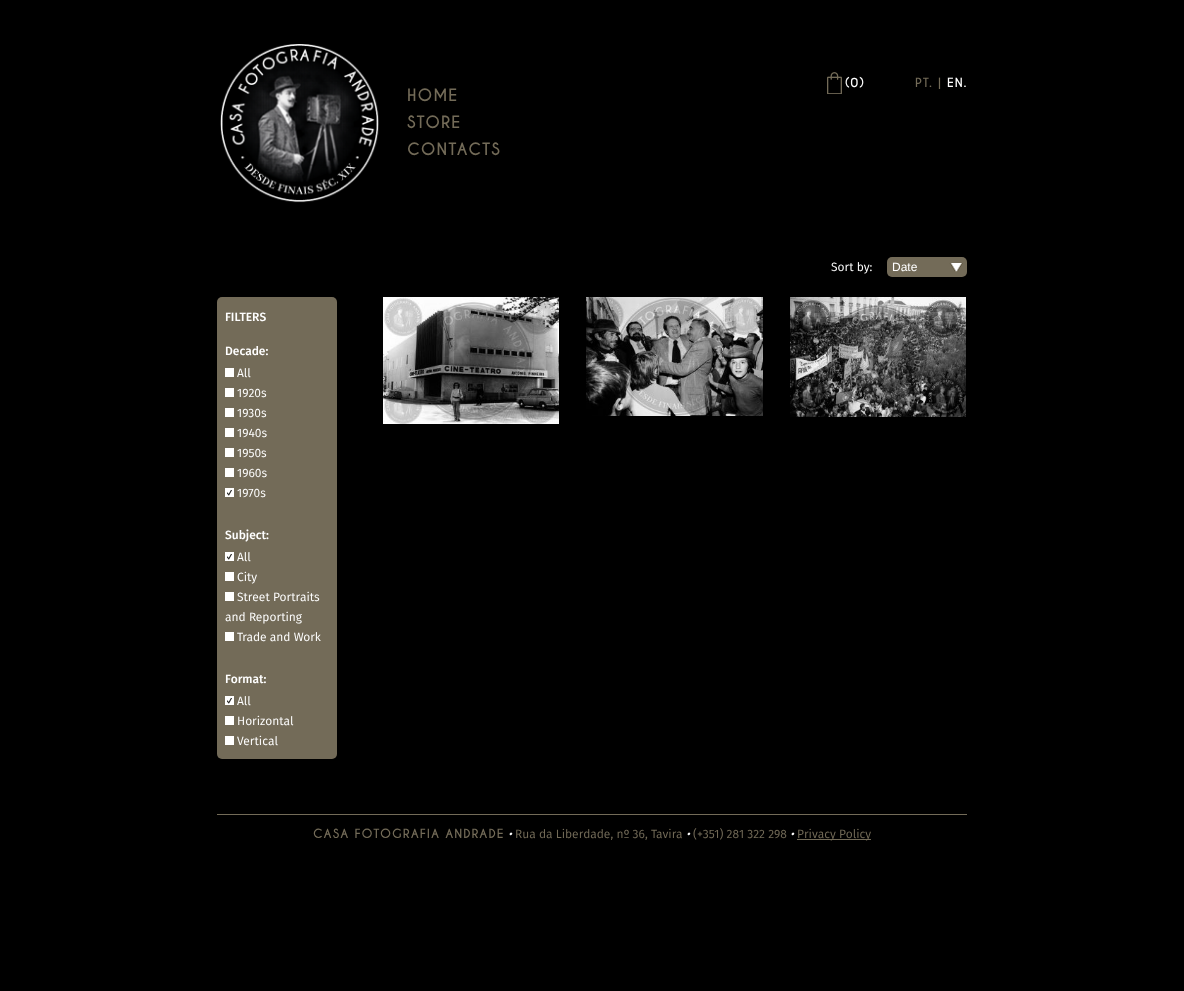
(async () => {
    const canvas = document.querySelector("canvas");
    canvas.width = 1184;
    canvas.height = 991;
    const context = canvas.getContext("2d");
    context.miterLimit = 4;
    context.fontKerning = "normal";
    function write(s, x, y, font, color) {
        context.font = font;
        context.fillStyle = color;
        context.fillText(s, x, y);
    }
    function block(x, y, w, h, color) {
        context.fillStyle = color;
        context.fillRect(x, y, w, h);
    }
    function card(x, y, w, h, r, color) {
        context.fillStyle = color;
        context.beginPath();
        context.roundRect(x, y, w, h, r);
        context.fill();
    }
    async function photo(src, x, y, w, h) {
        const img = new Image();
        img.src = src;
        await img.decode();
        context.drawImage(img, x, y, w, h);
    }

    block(0, 0, 1184, 991, "rgb(0, 0, 0)");
    await photo("media/1.png", 827, 72, 15, 22);
    context.letterSpacing = "1px";
    write("(0)", 845, 87, "bold 12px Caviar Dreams", "rgb(255, 255, 255)");
    write("PT.", 915, 87, "bold 12px Caviar Dreams", "rgb(115, 107, 88)");
    write("|", 938, 87, "bold 12px Caviar Dreams", "rgb(115, 107, 88)");
    write("EN.", 947, 87, "bold 12px Caviar Dreams", "rgb(255, 255, 255)");
    await photo("media/2.png", 220, 44, 159, 159);
    write("HOME", 407, 101, "bold 16px Caviar Dreams", "rgb(115, 107, 88)");
    write("STORE", 407, 128, "bold 16px Caviar Dreams", "rgb(115, 107, 88)");
    write("CONTACTS", 407, 155, "bold 16px Caviar Dreams", "rgb(115, 107, 88)");
    context.letterSpacing = "0px";
    write("Sort by:", 831, 271, "12px Fira Sans", "rgb(255, 255, 255)");
    await photo("media/3.png", 887, 257, 80, 20);
    write("Date", 892, 271, "12px Liberation Sans", "rgb(255, 255, 255)");
    await photo("media/4.png", 383, 297, 176, 127);
    await photo("media/5.png", 586, 297, 177, 119);
    await photo("media/6.png", 790, 297, 176, 120);
    card(217, 297, 120, 462, 5, "rgb(115, 107, 88)");
    write("FILTERS", 225, 321, "500 12px Fira Sans", "rgb(255, 255, 255)");
    write("Decade:", 225, 355, "500 12px Fira Sans", "rgb(255, 255, 255)");
    block(225, 368, 9, 9, "rgb(255, 255, 255)");
    write("All", 237, 377, "12px Fira Sans", "rgb(255, 255, 255)");
    block(225, 388, 9, 9, "rgb(255, 255, 255)");
    write("1920s", 237, 397, "12px Fira Sans", "rgb(255, 255, 255)");
    block(225, 408, 9, 9, "rgb(255, 255, 255)");
    write("1930s", 237, 417, "12px Fira Sans", "rgb(255, 255, 255)");
    block(225, 428, 9, 9, "rgb(255, 255, 255)");
    write("1940s", 237, 437, "12px Fira Sans", "rgb(255, 255, 255)");
    block(225, 448, 9, 9, "rgb(255, 255, 255)");
    write("1950s", 237, 457, "12px Fira Sans", "rgb(255, 255, 255)");
    block(225, 468, 9, 9, "rgb(255, 255, 255)");
    write("1960s", 237, 477, "12px Fira Sans", "rgb(255, 255, 255)");
    block(225, 488, 9, 9, "rgb(255, 255, 255)");
    await photo("media/7.png", 227, 490, 5, 6);
    write("1970s", 237, 497, "12px Fira Sans", "rgb(255, 255, 255)");
    write("Subject:", 225, 539, "500 12px Fira Sans", "rgb(255, 255, 255)");
    block(225, 552, 9, 9, "rgb(255, 255, 255)");
    await photo("media/7.png", 227, 554, 5, 6);
    write("All", 237, 561, "12px Fira Sans", "rgb(255, 255, 255)");
    block(225, 572, 9, 9, "rgb(255, 255, 255)");
    write("City", 237, 581, "12px Fira Sans", "rgb(255, 255, 255)");
    block(225, 592, 9, 9, "rgb(255, 255, 255)");
    write("Street Portraits", 237, 601, "12px Fira Sans", "rgb(255, 255, 255)");
    write("and Reporting", 225, 621, "12px Fira Sans", "rgb(255, 255, 255)");
    block(225, 632, 9, 9, "rgb(255, 255, 255)");
    write("Trade and Work", 237, 641, "12px Fira Sans", "rgb(255, 255, 255)");
    write("Format:", 225, 683, "500 12px Fira Sans", "rgb(255, 255, 255)");
    block(225, 696, 9, 9, "rgb(255, 255, 255)");
    await photo("media/7.png", 227, 698, 5, 6);
    write("All", 237, 705, "12px Fira Sans", "rgb(255, 255, 255)");
    block(225, 716, 9, 9, "rgb(255, 255, 255)");
    write("Horizontal", 237, 725, "12px Fira Sans", "rgb(255, 255, 255)");
    block(225, 736, 9, 9, "rgb(255, 255, 255)");
    write("Vertical", 237, 745, "12px Fira Sans", "rgb(255, 255, 255)");
    block(217, 814, 750, 1, "rgb(115, 107, 88)");
    context.letterSpacing = "1px";
    write("CASA FOTOGRAFIA ANDRADE", 313, 838, "bold 12px Caviar Dreams", "rgb(115, 107, 88)");
    context.letterSpacing = "0px";
    write("•", 508, 838, "italic 12px Fira Sans", "rgb(255, 255, 255)");
    write("Rua da Liberdade, nº 36, Tavira", 515, 838, "12px Fira Sans", "rgb(115, 107, 88)");
    write("•", 686, 838, "italic 12px Fira Sans", "rgb(255, 255, 255)");
    write("(+351) 281 322 298", 693, 838, "12px Fira Sans", "rgb(115, 107, 88)");
    write("•", 790, 838, "italic 12px Fira Sans", "rgb(255, 255, 255)");
    block(797, 839, 74, 1, "rgb(115, 107, 88)");
    write("Privacy Policy", 797, 838, "12px Fira Sans", "rgb(115, 107, 88)");
})();
